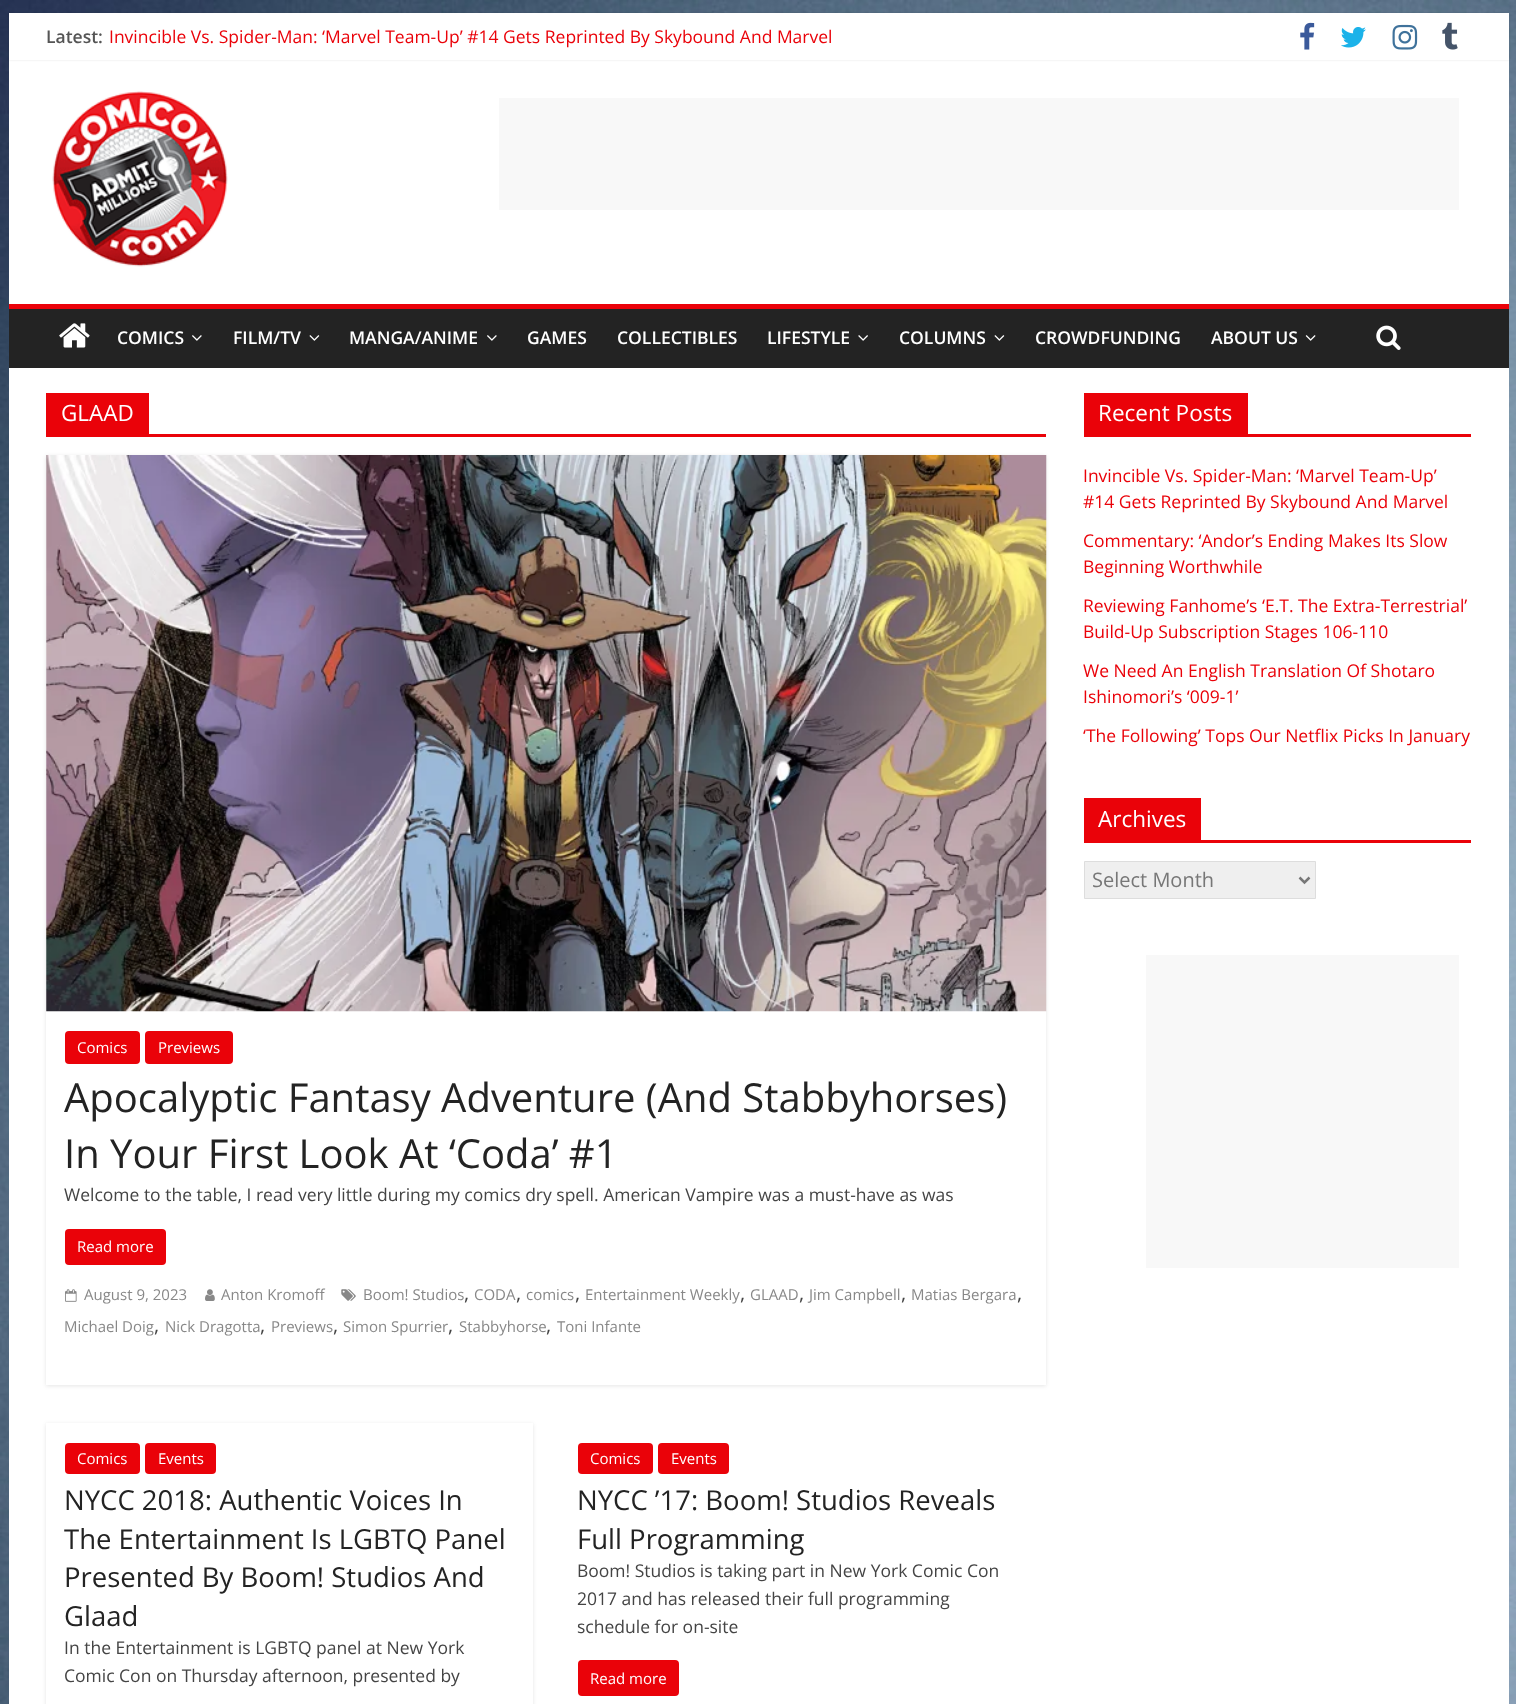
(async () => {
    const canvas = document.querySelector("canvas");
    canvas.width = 1516;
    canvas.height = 1704;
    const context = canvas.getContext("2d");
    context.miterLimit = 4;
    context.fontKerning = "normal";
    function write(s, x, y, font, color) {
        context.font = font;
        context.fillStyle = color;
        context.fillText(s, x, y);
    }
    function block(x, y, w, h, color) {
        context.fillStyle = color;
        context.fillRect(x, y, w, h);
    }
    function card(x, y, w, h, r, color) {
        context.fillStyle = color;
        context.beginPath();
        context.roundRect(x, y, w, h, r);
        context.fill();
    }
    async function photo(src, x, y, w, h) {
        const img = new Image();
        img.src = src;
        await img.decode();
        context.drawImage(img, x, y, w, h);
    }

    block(0, 0, 1516, 1704, "rgb(255, 255, 255)");
    await photo("media/1.png", 0, 0, 1516, 1704);
    block(9, 60, 1500, 244, "rgb(255, 255, 255)");
    context.fillStyle = "rgba(0, 0, 0, 0.1)";
    context.filter = "blur(1px)";
    context.beginPath();
    context.rect(9, 13, 1500, 47);
    context.fill();
    context.filter = "none";
    block(9, 13, 1500, 47, "rgb(255, 255, 255)");
    write("Latest:", 46, 43, "600 17.5px Open Sans", "rgb(85, 85, 85)");
    write("Invincible Vs. Spider-Man: ‘Marvel Team-Up’ #14 Gets Reprinted By Skybound And Marvel", 109, 43, "17.5px Open Sans", "rgb(234, 2, 9)");
    await photo("media/2.png", 1300, 22, 15, 28);
    await photo("media/3.png", 1341, 27, 25, 21);
    await photo("media/4.png", 1392, 24, 26, 26);
    await photo("media/5.png", 1442, 22, 16, 28);
    await photo("media/6.png", 52, 91, 176, 176);
    block(499, 98, 960, 112, "rgb(248, 248, 248)");
    block(9, 309, 1500, 59, "rgb(35, 35, 35)");
    block(9, 304, 1500, 5, "rgb(234, 2, 9)");
    await photo("media/7.png", 59, 323, 31, 25);
    write("COMICS", 117, 344, "600 17.5px Open Sans", "rgb(255, 255, 255)");
    await photo("media/8.png", 192, 335, 10, 6);
    write("FILM/TV", 233, 344, "600 17.5px Open Sans", "rgb(255, 255, 255)");
    await photo("media/9.png", 309, 335, 11, 6);
    write("MANGA/ANIME", 349, 344, "600 17.5px Open Sans", "rgb(255, 255, 255)");
    await photo("media/8.png", 487, 335, 10, 6);
    write("GAMES", 527, 344, "600 17.5px Open Sans", "rgb(255, 255, 255)");
    write("COLLECTIBLES", 617, 344, "600 17.5px Open Sans", "rgb(255, 255, 255)");
    write("LIFESTYLE", 767, 344, "600 17.5px Open Sans", "rgb(255, 255, 255)");
    await photo("media/10.png", 858, 335, 10, 6);
    write("COLUMNS", 899, 344, "600 17.5px Open Sans", "rgb(255, 255, 255)");
    await photo("media/9.png", 994, 335, 11, 6);
    write("CROWDFUNDING", 1035, 344, "600 17.5px Open Sans", "rgb(255, 255, 255)");
    write("ABOUT US", 1211, 344, "600 17.5px Open Sans", "rgb(255, 255, 255)");
    await photo("media/11.png", 1305, 335, 11, 6);
    await photo("media/12.png", 1376, 325, 25, 25);
    block(9, 368, 1500, 1336, "rgb(255, 255, 255)");
    block(46, 434, 1000, 3, "rgb(234, 2, 9)");
    block(46, 393, 103, 41, "rgb(234, 2, 9)");
    write("GLAAD", 61, 421, "22.5px Open Sans", "rgb(255, 255, 255)");
    context.save();
    context.beginPath();
    context.moveTo(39, 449);
    context.lineTo(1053, 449);
    context.lineTo(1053, 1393);
    context.lineTo(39, 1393);
    context.closePath();
    context.moveTo(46, 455);
    context.lineTo(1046, 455);
    context.lineTo(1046, 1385);
    context.lineTo(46, 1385);
    context.closePath();
    context.clip("evenodd");
    context.fillStyle = "rgba(0, 0, 0, 0.1)";
    context.filter = "blur(2px)";
    context.beginPath();
    context.rect(46, 456, 1000, 930);
    context.fill();
    context.filter = "none";
    context.restore();
    await photo("media/13.png", 46, 455, 1001, 557);
    card(65, 1031, 75, 33, 4, "rgb(234, 2, 9)");
    write("Comics", 77, 1053, "15px Open Sans", "rgb(255, 255, 255)");
    card(145, 1031, 88, 33, 4, "rgb(234, 2, 9)");
    write("Previews", 158, 1053, "15px Open Sans", "rgb(255, 255, 255)");
    write("Apocalyptic Fantasy Adventure (And Stabbyhorses)", 64, 1112, "40px Open Sans", "rgb(35, 35, 35)");
    write("In Your First Look At ‘Coda’ #1", 64, 1168, "40px Open Sans", "rgb(35, 35, 35)");
    write("Welcome to the table, I read very little during my comics dry spell. American Vampire was a must-have as was", 64, 1201, "17.5px Open Sans", "rgb(68, 68, 68)");
    card(65, 1229, 101, 36, 4, "rgb(234, 2, 9)");
    write("Read more", 77, 1252, "15px Open Sans", "rgb(255, 255, 255)");
    await photo("media/14.png", 341, 1289, 15, 12);
    write("Boom! Studios", 363, 1300, "15px Open Sans", "rgb(136, 136, 136)");
    write(",", 464, 1300, "20px Open Sans", "rgb(68, 68, 68)");
    write("CODA", 474, 1300, "15px Open Sans", "rgb(136, 136, 136)");
    write(",", 516, 1300, "20px Open Sans", "rgb(68, 68, 68)");
    write("comics", 526, 1300, "15px Open Sans", "rgb(136, 136, 136)");
    write(",", 575, 1300, "20px Open Sans", "rgb(68, 68, 68)");
    write("Entertainment Weekly", 585, 1300, "15px Open Sans", "rgb(136, 136, 136)");
    write(",", 740, 1300, "20px Open Sans", "rgb(68, 68, 68)");
    write("GLAAD", 750, 1300, "15px Open Sans", "rgb(136, 136, 136)");
    write(",", 799, 1300, "20px Open Sans", "rgb(68, 68, 68)");
    write("Jim Campbell", 809, 1300, "15px Open Sans", "rgb(136, 136, 136)");
    write(",", 901, 1300, "20px Open Sans", "rgb(68, 68, 68)");
    write("Matias Bergara", 911, 1300, "15px Open Sans", "rgb(136, 136, 136)");
    write(",", 1017, 1300, "20px Open Sans", "rgb(68, 68, 68)");
    write("Michael Doig", 64, 1332, "15px Open Sans", "rgb(136, 136, 136)");
    write(",", 154, 1332, "20px Open Sans", "rgb(68, 68, 68)");
    write("Nick Dragotta", 165, 1332, "15px Open Sans", "rgb(136, 136, 136)");
    write(",", 260, 1332, "20px Open Sans", "rgb(68, 68, 68)");
    write("Previews", 271, 1332, "15px Open Sans", "rgb(136, 136, 136)");
    write(",", 333, 1332, "20px Open Sans", "rgb(68, 68, 68)");
    write("Simon Spurrier", 343, 1332, "15px Open Sans", "rgb(136, 136, 136)");
    write(",", 448, 1332, "20px Open Sans", "rgb(68, 68, 68)");
    write("Stabbyhorse", 459, 1332, "15px Open Sans", "rgb(136, 136, 136)");
    write(",", 546, 1332, "20px Open Sans", "rgb(68, 68, 68)");
    write("Toni Infante", 557, 1332, "15px Open Sans", "rgb(136, 136, 136)");
    await photo("media/15.png", 65, 1289, 12, 13);
    write("August 9, 2023", 84, 1300, "15px Open Sans", "rgb(136, 136, 136)");
    await photo("media/16.png", 205, 1289, 10, 12);
    write("Anton Kromoff", 221, 1300, "15px Open Sans", "rgb(136, 136, 136)");
    context.save();
    context.beginPath();
    context.moveTo(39, 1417);
    context.lineTo(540, 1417);
    context.lineTo(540, 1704);
    context.lineTo(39, 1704);
    context.closePath();
    context.moveTo(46, 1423);
    context.lineTo(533, 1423);
    context.lineTo(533, 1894);
    context.lineTo(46, 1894);
    context.closePath();
    context.clip("evenodd");
    context.fillStyle = "rgba(0, 0, 0, 0.1)";
    context.filter = "blur(2px)";
    context.beginPath();
    context.rect(46, 1424, 487, 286);
    context.fill();
    context.filter = "none";
    context.restore();
    card(65, 1443, 75, 31, 4, "rgb(234, 2, 9)");
    write("Comics", 77, 1464, "15px Open Sans", "rgb(255, 255, 255)");
    card(145, 1443, 71, 31, 4, "rgb(234, 2, 9)");
    write("Events", 158, 1464, "15px Open Sans", "rgb(255, 255, 255)");
    write("NYCC 2018: Authentic Voices In", 64, 1510, "27.5px Open Sans", "rgb(35, 35, 35)");
    write("The Entertainment Is LGBTQ Panel", 64, 1549, "27.5px Open Sans", "rgb(35, 35, 35)");
    write("Presented By Boom! Studios And", 64, 1587, "27.5px Open Sans", "rgb(35, 35, 35)");
    write("Glaad", 64, 1626, "27.5px Open Sans", "rgb(35, 35, 35)");
    write("In the Entertainment is LGBTQ panel at New York", 64, 1654, "17.5px Open Sans", "rgb(68, 68, 68)");
    write("Comic Con on Thursday afternoon, presented by", 64, 1682, "17.5px Open Sans", "rgb(68, 68, 68)");
    card(578, 1443, 75, 31, 4, "rgb(234, 2, 9)");
    write("Comics", 590, 1464, "15px Open Sans", "rgb(255, 255, 255)");
    card(658, 1443, 71, 31, 4, "rgb(234, 2, 9)");
    write("Events", 671, 1464, "15px Open Sans", "rgb(255, 255, 255)");
    write("NYCC ’17: Boom! Studios Reveals", 577, 1510, "27.5px Open Sans", "rgb(35, 35, 35)");
    write("Full Programming", 577, 1549, "27.5px Open Sans", "rgb(35, 35, 35)");
    write("Boom! Studios is taking part in New York Comic Con", 577, 1577, "17.5px Open Sans", "rgb(68, 68, 68)");
    write("2017 and has released their full programming", 577, 1605, "17.5px Open Sans", "rgb(68, 68, 68)");
    write("schedule for on-site", 577, 1633, "17.5px Open Sans", "rgb(68, 68, 68)");
    card(578, 1660, 101, 36, 4, "rgb(234, 2, 9)");
    write("Read more", 590, 1684, "15px Open Sans", "rgb(255, 255, 255)");
    block(1084, 434, 387, 3, "rgb(234, 2, 9)");
    block(1084, 393, 164, 41, "rgb(234, 2, 9)");
    write("Recent Posts", 1098, 421, "22.5px Open Sans", "rgb(255, 255, 255)");
    write("Invincible Vs. Spider-Man: ‘Marvel Team-Up’", 1083, 482, "17.5px Open Sans", "rgb(234, 2, 9)");
    write("#14 Gets Reprinted By Skybound And Marvel", 1083, 508, "17.5px Open Sans", "rgb(234, 2, 9)");
    write("Commentary: ‘Andor’s Ending Makes Its Slow", 1083, 547, "17.5px Open Sans", "rgb(234, 2, 9)");
    write("Beginning Worthwhile", 1083, 573, "17.5px Open Sans", "rgb(234, 2, 9)");
    write("Reviewing Fanhome’s ‘E.T. The Extra-Terrestrial’", 1083, 612, "17.5px Open Sans", "rgb(234, 2, 9)");
    write("Build-Up Subscription Stages 106-110", 1083, 638, "17.5px Open Sans", "rgb(234, 2, 9)");
    write("We Need An English Translation Of Shotaro", 1083, 677, "17.5px Open Sans", "rgb(234, 2, 9)");
    write("Ishinomori’s ‘009-1’", 1083, 703, "17.5px Open Sans", "rgb(234, 2, 9)");
    write("‘The Following’ Tops Our Netflix Picks In January", 1083, 742, "17.5px Open Sans", "rgb(234, 2, 9)");
    block(1084, 840, 387, 3, "rgb(234, 2, 9)");
    block(1084, 798, 117, 42, "rgb(234, 2, 9)");
    write("Archives", 1098, 827, "22.5px Open Sans", "rgb(255, 255, 255)");
    context.fillStyle = "rgb(239, 239, 239)";
    context.beginPath();
    context.rect(1084.5, 861.5, 231, 37);
    context.fill();
    context.strokeStyle = "rgb(221, 221, 221)";
    context.stroke();
    context.beginPath();
    context.moveTo(1299.5, 877.5);
    context.lineTo(1304.5, 882.5);
    context.lineTo(1309.5, 877.5);
    context.strokeStyle = "rgb(119, 119, 119)";
    context.lineWidth = 2.5;
    context.stroke();
    write("Select Month", 1092, 887, "20px Open Sans", "rgb(119, 119, 119)");
    block(1146, 955, 313, 313, "rgb(248, 248, 248)");
})();
